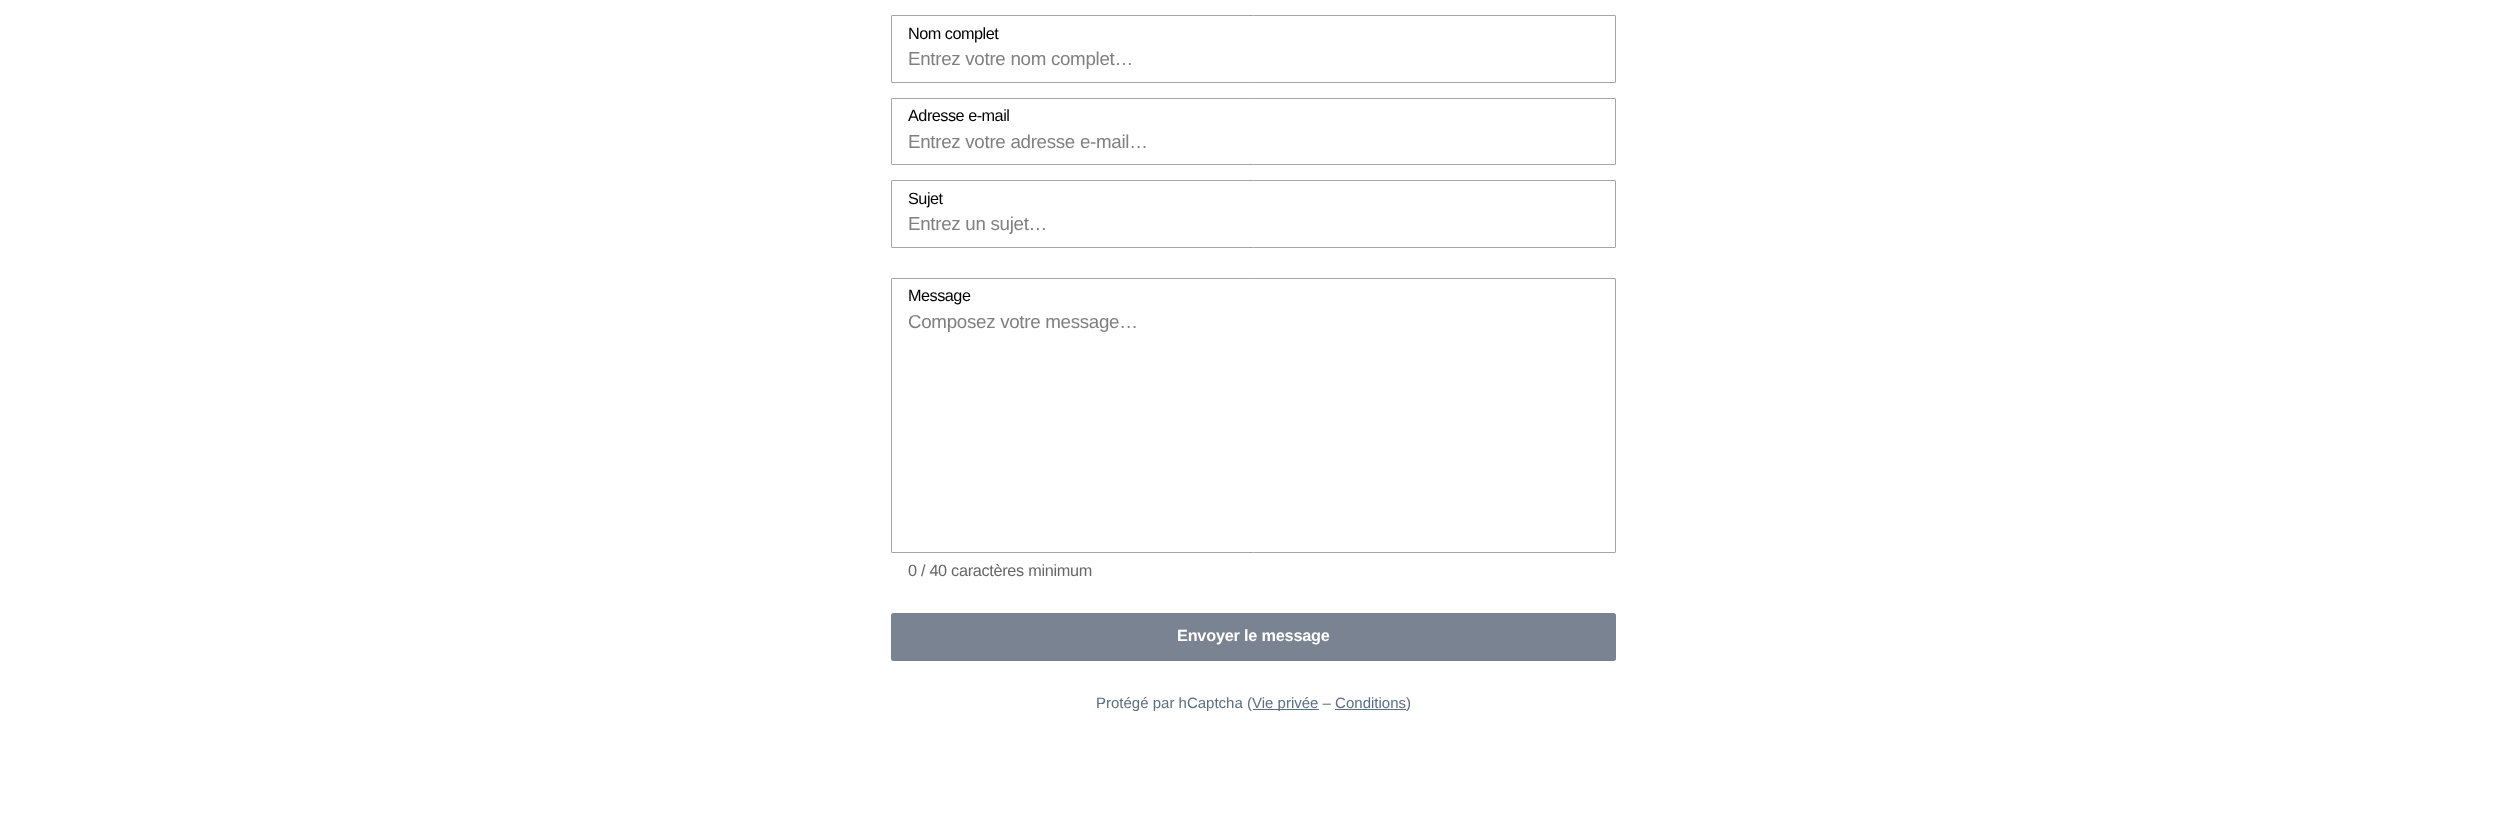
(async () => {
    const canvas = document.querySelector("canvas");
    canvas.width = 2507;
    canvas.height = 834;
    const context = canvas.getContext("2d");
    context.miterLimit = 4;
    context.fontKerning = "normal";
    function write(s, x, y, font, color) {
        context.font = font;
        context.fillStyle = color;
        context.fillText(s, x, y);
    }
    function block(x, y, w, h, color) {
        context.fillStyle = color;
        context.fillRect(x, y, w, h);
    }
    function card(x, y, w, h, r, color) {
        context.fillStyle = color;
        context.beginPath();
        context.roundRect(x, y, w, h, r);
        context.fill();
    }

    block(0, 0, 2507, 834, "rgb(255, 255, 255)");
    context.beginPath();
    context.roundRect(891.5, 15.5, 724, 67, 0.5);
    context.strokeStyle = "rgb(166, 166, 166)";
    context.stroke();
    context.letterSpacing = "-0.5px";
    write("Nom complet", 908, 39, "16.25px Liberation Sans", "rgb(0, 0, 0)");
    context.letterSpacing = "-0.3px";
    write("Entrez votre nom complet…", 908, 65, "18.75px Liberation Sans", "rgb(128, 128, 128)");
    context.beginPath();
    context.roundRect(891.5, 98.5, 724, 66, 0.5);
    context.stroke();
    context.letterSpacing = "-0.5px";
    write("Adresse e-mail", 908, 121, "16.25px Liberation Sans", "rgb(0, 0, 0)");
    context.letterSpacing = "-0.3px";
    write("Entrez votre adresse e-mail…", 908, 148, "18.75px Liberation Sans", "rgb(128, 128, 128)");
    context.beginPath();
    context.roundRect(891.5, 180.5, 724, 67, 0.5);
    context.stroke();
    context.letterSpacing = "-0.5px";
    write("Sujet", 908, 204, "16.25px Liberation Sans", "rgb(0, 0, 0)");
    context.letterSpacing = "-0.3px";
    write("Entrez un sujet…", 908, 230, "18.75px Liberation Sans", "rgb(128, 128, 128)");
    context.beginPath();
    context.roundRect(891.5, 278.5, 724, 274, 0.5);
    context.stroke();
    context.letterSpacing = "-0.5px";
    write("Message", 908, 301, "16.25px Liberation Sans", "rgb(0, 0, 0)");
    context.letterSpacing = "-0.3px";
    write("Composez votre message…", 908, 328, "18.75px Liberation Sans", "rgb(128, 128, 128)");
    write("0 / 40 caractères minimum", 908, 576, "16.25px Liberation Sans", "rgb(102, 102, 102)");
    card(891, 613, 725, 48, 2.5, "rgb(121, 131, 145)");
    context.letterSpacing = "-0.2px";
    write("Envoyer le message", 1177, 641, "bold 16.25px Liberation Sans", "rgb(255, 255, 255)");
    context.letterSpacing = "0px";
    write("Protégé par hCaptcha (", 1096, 708, "15px Liberation Sans", "rgb(91, 111, 131)");
    block(1253, 709, 66, 1, "rgb(91, 111, 131)");
    write("Vie privée – Conditions)", 1252, 708, "15px Liberation Sans", "rgb(91, 111, 131)");
    block(1335, 709, 71, 1, "rgb(91, 111, 131)");
})();
